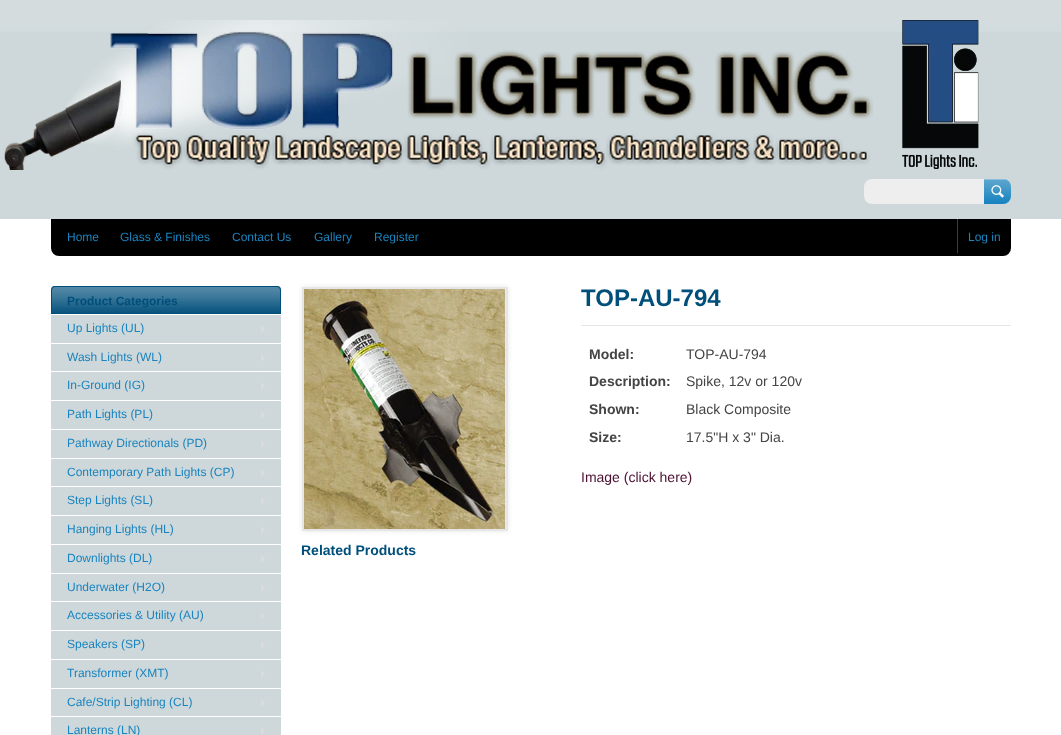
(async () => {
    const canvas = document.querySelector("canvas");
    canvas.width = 1061;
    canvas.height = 735;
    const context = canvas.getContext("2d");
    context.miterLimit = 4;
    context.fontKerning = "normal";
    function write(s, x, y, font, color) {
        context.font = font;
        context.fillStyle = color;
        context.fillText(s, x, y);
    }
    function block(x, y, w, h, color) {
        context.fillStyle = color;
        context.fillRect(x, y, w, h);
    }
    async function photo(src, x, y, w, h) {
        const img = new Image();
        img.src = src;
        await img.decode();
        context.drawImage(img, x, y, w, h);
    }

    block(0, 0, 1061, 735, "rgb(206, 216, 218)");
    await photo("media/1.png", 0, 0, 1061, 32);
    await photo("media/2.png", 4, 20, 975, 150);
    context.fillStyle = "rgb(238, 238, 238)";
    context.beginPath();
    context.roundRect(864, 179, 120, 25, [8, 0, 0, 8]);
    context.fill();
    context.fillStyle = "rgb(25, 132, 191)";
    context.beginPath();
    context.roundRect(984, 179, 27, 25, [0, 8, 8, 0]);
    context.fill();
    await photo("media/3.png", 984, 179, 27, 23);
    block(0, 219, 1061, 516, "rgb(255, 255, 255)");
    context.fillStyle = "rgb(0, 0, 0)";
    context.beginPath();
    context.roundRect(51, 219, 960, 37, [0, 0, 8, 8]);
    context.fill();
    write("Home", 67, 241, "12px Liberation Sans", "rgb(25, 132, 191)");
    write("Glass & Finishes", 120, 241, "12px Liberation Sans", "rgb(25, 132, 191)");
    write("Contact Us", 232, 241, "12px Liberation Sans", "rgb(25, 132, 191)");
    write("Gallery", 314, 241, "12px Liberation Sans", "rgb(25, 132, 191)");
    write("Register", 374, 241, "12px Liberation Sans", "rgb(25, 132, 191)");
    block(957, 219, 1, 34, "rgb(0, 79, 123)");
    write("Log in", 968, 241, "12px Liberation Sans", "rgb(25, 132, 191)");
    context.fillStyle = "rgb(0, 79, 123)";
    context.beginPath();
    context.roundRect(51, 286, 230, 28, [4, 4, 0, 0]);
    context.fill();
    await photo("media/4.png", 51, 287, 230, 26);
    context.beginPath();
    context.roundRect(51.5, 286.5, 229, 27, [3.5, 3.5, 0, 0]);
    context.strokeStyle = "rgb(0, 79, 123)";
    context.stroke();
    write("Product Categories", 67, 305, "bold 12px Liberation Sans", "rgb(0, 79, 123)");
    block(51, 315, 230, 28, "rgb(206, 216, 218)");
    write("Up Lights (UL)", 67, 332, "12px Liberation Sans", "rgb(25, 132, 191)");
    context.fillStyle = "rgb(219, 219, 219)";
    context.beginPath();
    context.moveTo(261, 333);
    context.lineTo(261, 325);
    context.lineTo(265, 329);
    context.closePath();
    context.fill();
    block(51, 344, 230, 27, "rgb(206, 216, 218)");
    write("Wash Lights (WL)", 67, 361, "12px Liberation Sans", "rgb(25, 132, 191)");
    context.fillStyle = "rgb(219, 219, 219)";
    context.beginPath();
    context.moveTo(261, 362);
    context.lineTo(261, 354);
    context.lineTo(265, 358);
    context.closePath();
    context.fill();
    block(51, 372, 230, 28, "rgb(206, 216, 218)");
    write("In-Ground (IG)", 67, 389, "12px Liberation Sans", "rgb(25, 132, 191)");
    context.fillStyle = "rgb(219, 219, 219)";
    context.beginPath();
    context.moveTo(261, 390);
    context.lineTo(261, 382);
    context.lineTo(265, 386);
    context.closePath();
    context.fill();
    block(51, 401, 230, 28, "rgb(206, 216, 218)");
    write("Path Lights (PL)", 67, 418, "12px Liberation Sans", "rgb(25, 132, 191)");
    context.fillStyle = "rgb(219, 219, 219)";
    context.beginPath();
    context.moveTo(261, 419);
    context.lineTo(261, 411);
    context.lineTo(265, 415);
    context.closePath();
    context.fill();
    block(51, 430, 230, 28, "rgb(206, 216, 218)");
    write("Pathway Directionals (PD)", 67, 447, "12px Liberation Sans", "rgb(25, 132, 191)");
    context.fillStyle = "rgb(219, 219, 219)";
    context.beginPath();
    context.moveTo(261, 448);
    context.lineTo(261, 440);
    context.lineTo(265, 444);
    context.closePath();
    context.fill();
    block(51, 459, 230, 27, "rgb(206, 216, 218)");
    write("Contemporary Path Lights (CP)", 67, 476, "12px Liberation Sans", "rgb(25, 132, 191)");
    context.fillStyle = "rgb(219, 219, 219)";
    context.beginPath();
    context.moveTo(261, 477);
    context.lineTo(261, 469);
    context.lineTo(265, 473);
    context.closePath();
    context.fill();
    block(51, 487, 230, 28, "rgb(206, 216, 218)");
    write("Step Lights (SL)", 67, 504, "12px Liberation Sans", "rgb(25, 132, 191)");
    context.fillStyle = "rgb(219, 219, 219)";
    context.beginPath();
    context.moveTo(261, 505);
    context.lineTo(261, 497);
    context.lineTo(265, 501);
    context.closePath();
    context.fill();
    block(51, 516, 230, 28, "rgb(206, 216, 218)");
    write("Hanging Lights (HL)", 67, 533, "12px Liberation Sans", "rgb(25, 132, 191)");
    context.fillStyle = "rgb(219, 219, 219)";
    context.beginPath();
    context.moveTo(261, 534);
    context.lineTo(261, 526);
    context.lineTo(265, 530);
    context.closePath();
    context.fill();
    block(51, 545, 230, 28, "rgb(206, 216, 218)");
    write("Downlights (DL)", 67, 562, "12px Liberation Sans", "rgb(25, 132, 191)");
    context.fillStyle = "rgb(219, 219, 219)";
    context.beginPath();
    context.moveTo(261, 563);
    context.lineTo(261, 555);
    context.lineTo(265, 559);
    context.closePath();
    context.fill();
    block(51, 574, 230, 27, "rgb(206, 216, 218)");
    write("Underwater (H2O)", 67, 591, "12px Liberation Sans", "rgb(25, 132, 191)");
    context.fillStyle = "rgb(219, 219, 219)";
    context.beginPath();
    context.moveTo(261, 592);
    context.lineTo(261, 584);
    context.lineTo(265, 588);
    context.closePath();
    context.fill();
    block(51, 602, 230, 28, "rgb(206, 216, 218)");
    write("Accessories & Utility (AU)", 67, 619, "12px Liberation Sans", "rgb(25, 132, 191)");
    context.fillStyle = "rgb(219, 219, 219)";
    context.beginPath();
    context.moveTo(261, 620);
    context.lineTo(261, 612);
    context.lineTo(265, 616);
    context.closePath();
    context.fill();
    block(51, 631, 230, 28, "rgb(206, 216, 218)");
    write("Speakers (SP)", 67, 648, "12px Liberation Sans", "rgb(25, 132, 191)");
    context.fillStyle = "rgb(219, 219, 219)";
    context.beginPath();
    context.moveTo(261, 649);
    context.lineTo(261, 641);
    context.lineTo(265, 645);
    context.closePath();
    context.fill();
    block(51, 660, 230, 28, "rgb(206, 216, 218)");
    write("Transformer (XMT)", 67, 677, "12px Liberation Sans", "rgb(25, 132, 191)");
    context.fillStyle = "rgb(219, 219, 219)";
    context.beginPath();
    context.moveTo(261, 678);
    context.lineTo(261, 670);
    context.lineTo(265, 674);
    context.closePath();
    context.fill();
    block(51, 689, 230, 27, "rgb(206, 216, 218)");
    write("Cafe/Strip Lighting (CL)", 67, 706, "12px Liberation Sans", "rgb(25, 132, 191)");
    context.fillStyle = "rgb(219, 219, 219)";
    context.beginPath();
    context.moveTo(261, 707);
    context.lineTo(261, 699);
    context.lineTo(265, 703);
    context.closePath();
    context.fill();
    block(51, 717, 230, 18, "rgb(206, 216, 218)");
    write("Lanterns (LN)", 67, 734, "12px Liberation Sans", "rgb(25, 132, 191)");
    context.fillStyle = "rgb(219, 219, 219)";
    context.beginPath();
    context.moveTo(261, 735);
    context.lineTo(261, 727);
    context.lineTo(265, 731);
    context.closePath();
    context.fill();
    context.fillStyle = "rgba(0, 0, 0, 0.1)";
    context.filter = "blur(2.5px)";
    context.beginPath();
    context.rect(302, 287, 206, 244);
    context.fill();
    context.filter = "none";
    context.strokeStyle = "rgb(230, 230, 230)";
    context.lineWidth = 2;
    context.strokeRect(303, 288, 204, 242);
    await photo("media/5.png", 304, 289, 201, 240);
    block(581, 325, 430, 1, "rgb(230, 230, 230)");
    write("TOP-AU-794", 581, 306, "bold 24px Liberation Sans", "rgb(0, 79, 123)");
    write("Model:", 589, 359, "bold 14px Liberation Sans", "rgb(68, 68, 68)");
    write("TOP-AU-794", 686, 359, "14px Liberation Sans", "rgb(68, 68, 68)");
    write("Description:", 589, 386, "bold 14px Liberation Sans", "rgb(68, 68, 68)");
    write("Spike, 12v or 120v", 686, 386, "14px Liberation Sans", "rgb(68, 68, 68)");
    write("Shown:", 589, 414, "bold 14px Liberation Sans", "rgb(68, 68, 68)");
    write("Black Composite", 686, 414, "14px Liberation Sans", "rgb(68, 68, 68)");
    write("Size:", 589, 442, "bold 14px Liberation Sans", "rgb(68, 68, 68)");
    write("17.5\"H x 3\" Dia.", 686, 442, "14px Liberation Sans", "rgb(68, 68, 68)");
    write("Image (click here)", 581, 482, "14px Liberation Sans", "rgb(76, 17, 48)");
    write("Related Products", 301, 555, "bold 14px Liberation Sans", "rgb(0, 79, 123)");
})();
